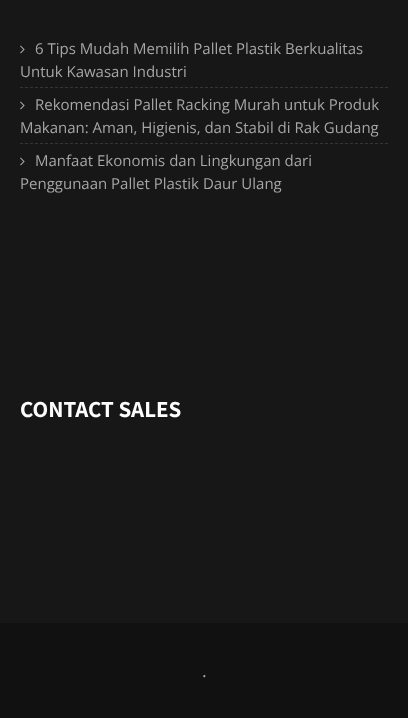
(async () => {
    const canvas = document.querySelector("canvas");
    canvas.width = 408;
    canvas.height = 718;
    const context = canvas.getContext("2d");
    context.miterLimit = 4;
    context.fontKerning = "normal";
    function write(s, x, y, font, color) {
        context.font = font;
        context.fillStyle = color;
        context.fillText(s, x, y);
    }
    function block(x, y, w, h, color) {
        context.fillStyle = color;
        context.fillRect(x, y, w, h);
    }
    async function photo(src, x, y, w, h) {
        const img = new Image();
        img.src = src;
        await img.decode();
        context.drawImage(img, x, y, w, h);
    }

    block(0, 0, 408, 718, "rgb(23, 23, 23)");
    context.beginPath();
    context.moveTo(20, 87.5);
    context.lineTo(388, 87.5);
    context.strokeStyle = "rgb(53, 53, 53)";
    context.setLineDash([3, 2]);
    context.stroke();
    await photo("media/1.png", 20, 45, 5, 9);
    write("6 Tips Mudah Memilih Pallet Plastik Berkualitas", 35, 54, "15px Open Sans", "rgb(166, 166, 166)");
    write("Untuk Kawasan Industri", 20, 77, "15px Open Sans", "rgb(166, 166, 166)");
    context.beginPath();
    context.moveTo(20, 143.5);
    context.lineTo(388, 143.5);
    context.stroke();
    await photo("media/1.png", 20, 101, 5, 9);
    write("Rekomendasi Pallet Racking Murah untuk Produk", 35, 110, "15px Open Sans", "rgb(166, 166, 166)");
    write("Makanan: Aman, Higienis, dan Stabil di Rak Gudang", 20, 133, "15px Open Sans", "rgb(166, 166, 166)");
    await photo("media/1.png", 20, 157, 5, 9);
    write("Manfaat Ekonomis dan Lingkungan dari", 35, 166, "15px Open Sans", "rgb(166, 166, 166)");
    write("Penggunaan Pallet Plastik Daur Ulang", 20, 189, "15px Open Sans", "rgb(166, 166, 166)");
    write("CONTACT SALES", 20, 417, "bold 23px Assistant", "rgb(255, 255, 255)");
    block(0, 623, 408, 95, "rgb(17, 17, 17)");
    write(".", 202, 677, "18px Open Sans", "rgb(166, 166, 166)");
})();
